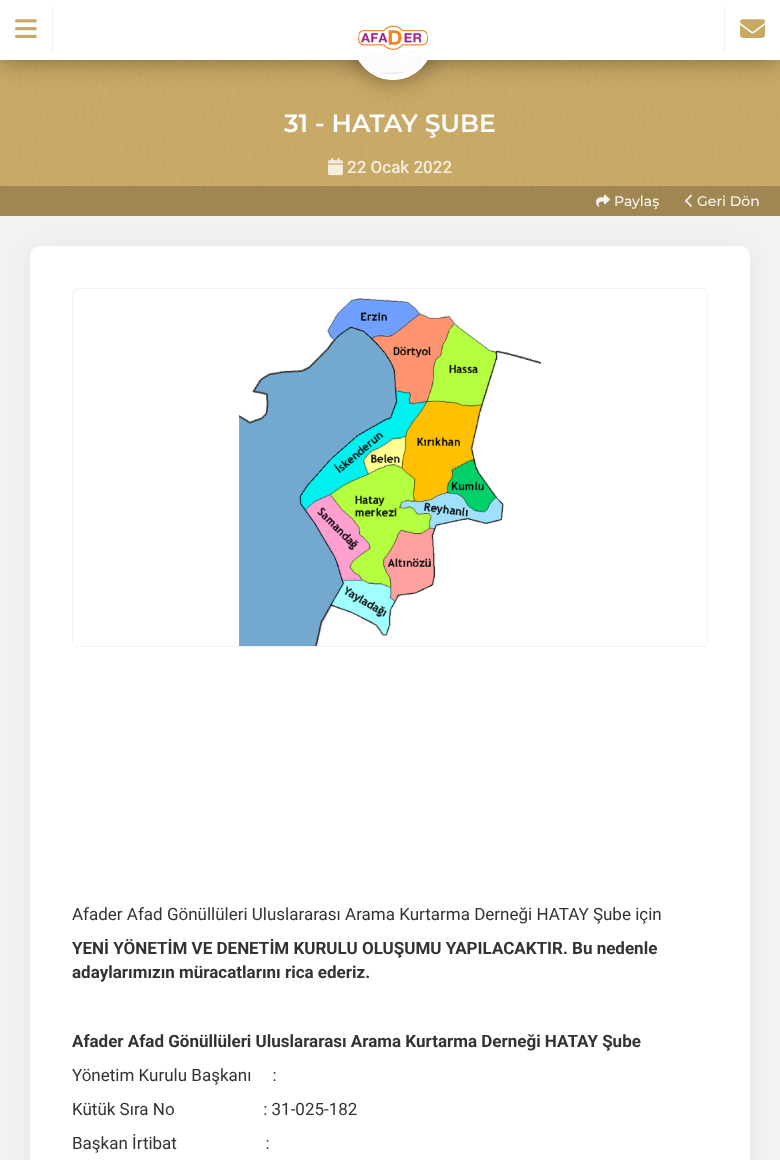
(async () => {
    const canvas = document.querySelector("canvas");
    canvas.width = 780;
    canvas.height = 1160;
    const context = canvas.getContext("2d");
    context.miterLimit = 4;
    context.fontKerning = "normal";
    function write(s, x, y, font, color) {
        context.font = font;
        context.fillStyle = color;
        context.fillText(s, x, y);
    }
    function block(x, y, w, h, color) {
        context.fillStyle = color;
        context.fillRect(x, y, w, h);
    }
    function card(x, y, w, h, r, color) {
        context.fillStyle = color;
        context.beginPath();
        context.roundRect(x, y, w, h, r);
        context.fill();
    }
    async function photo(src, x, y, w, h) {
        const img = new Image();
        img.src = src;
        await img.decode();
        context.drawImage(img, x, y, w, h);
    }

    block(0, 0, 780, 1160, "rgb(242, 242, 242)");
    block(0, 60, 780, 156, "rgb(200, 168, 101)");
    await photo("media/4.png", 0, 60, 780, 156);
    context.fillStyle = "rgba(0, 0, 0, 0.4)";
    context.filter = "blur(12.5px)";
    context.beginPath();
    context.roundRect(353, 0, 80, 80, 40);
    context.fill();
    context.filter = "none";
    context.fillStyle = "rgb(255, 255, 255)";
    context.beginPath();
    context.arc(393, 40, 40, 0, Math.PI * 2);
    context.fill();
    context.fillStyle = "rgba(0, 0, 0, 0.4)";
    context.filter = "blur(12.5px)";
    context.beginPath();
    context.rect(0, 0, 780, 60);
    context.fill();
    context.filter = "none";
    block(0, 0, 780, 60, "rgb(255, 255, 255)");
    block(52, 6, 1, 46, "rgb(240, 240, 240)");
    await photo("media/1.png", 15, 19, 22, 19);
    context.beginPath();
    context.arc(393, 40, 37.5, 0, Math.PI * 2);
    context.strokeStyle = "rgb(255, 255, 255)";
    context.lineWidth = 5;
    context.stroke();
    await photo("media/2.png", 358, 25, 70, 47);
    block(724, 6, 1, 46, "rgb(240, 240, 240)");
    await photo("media/3.png", 740, 19, 25, 19);
    write("31 - HATAY ŞUBE", 284, 132, "600 25px Montserrat", "rgb(255, 255, 255)");
    await photo("media/5.png", 328, 158, 15, 18);
    write("22 Ocak 2022", 347, 173, "500 17px Roboto", "rgb(244, 238, 225)");
    context.fillStyle = "rgba(0, 0, 0, 0.05)";
    context.filter = "blur(12.5px)";
    context.beginPath();
    context.roundRect(30, 246, 720, 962, 10);
    context.fill();
    context.filter = "none";
    block(0, 186, 780, 30, "rgba(0, 0, 0, 0.2)");
    await photo("media/6.png", 596, 194, 14, 13);
    write("Paylaş", 614, 206, "500 14px Montserrat", "rgb(246, 243, 238)");
    await photo("media/7.png", 685, 194, 7, 13);
    write("Geri Dön", 697, 206, "500 14px Montserrat", "rgb(246, 243, 238)");
    card(30, 246, 720, 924, 10, "rgb(255, 255, 255)");
    context.beginPath();
    context.roundRect(72.5, 288.5, 635, 358, 6.5);
    context.strokeStyle = "rgb(242, 242, 242)";
    context.lineWidth = 1;
    context.stroke();
    await photo("media/8.png", 239, 298, 302, 348);
    write("Afader Afad Gönüllüleri Uluslararası Arama Kurtarma Derneği HATAY Şube için", 72, 920, "17px Roboto", "rgb(51, 51, 51)");
    write("YENİ YÖNETİM VE DENETİM KURULU OLUŞUMU YAPILACAKTIR. Bu nedenle", 72, 954, "bold 17px Roboto", "rgb(51, 51, 51)");
    write("adaylarımızın müracatlarını rica ederiz.", 72, 978, "bold 17px Roboto", "rgb(51, 51, 51)");
    write("Afader Afad Gönüllüleri Uluslararası Arama Kurtarma Derneği HATAY Şube", 72, 1047, "bold 17px Roboto", "rgb(51, 51, 51)");
    write("Yönetim Kurulu Başkanı     :", 72, 1081, "17px Roboto", "rgb(51, 51, 51)");
    write("Kütük Sıra No                     : 31-025-182", 72, 1115, "17px Roboto", "rgb(51, 51, 51)");
    write("Başkan İrtibat                     :", 72, 1149, "17px Roboto", "rgb(51, 51, 51)");
})();
